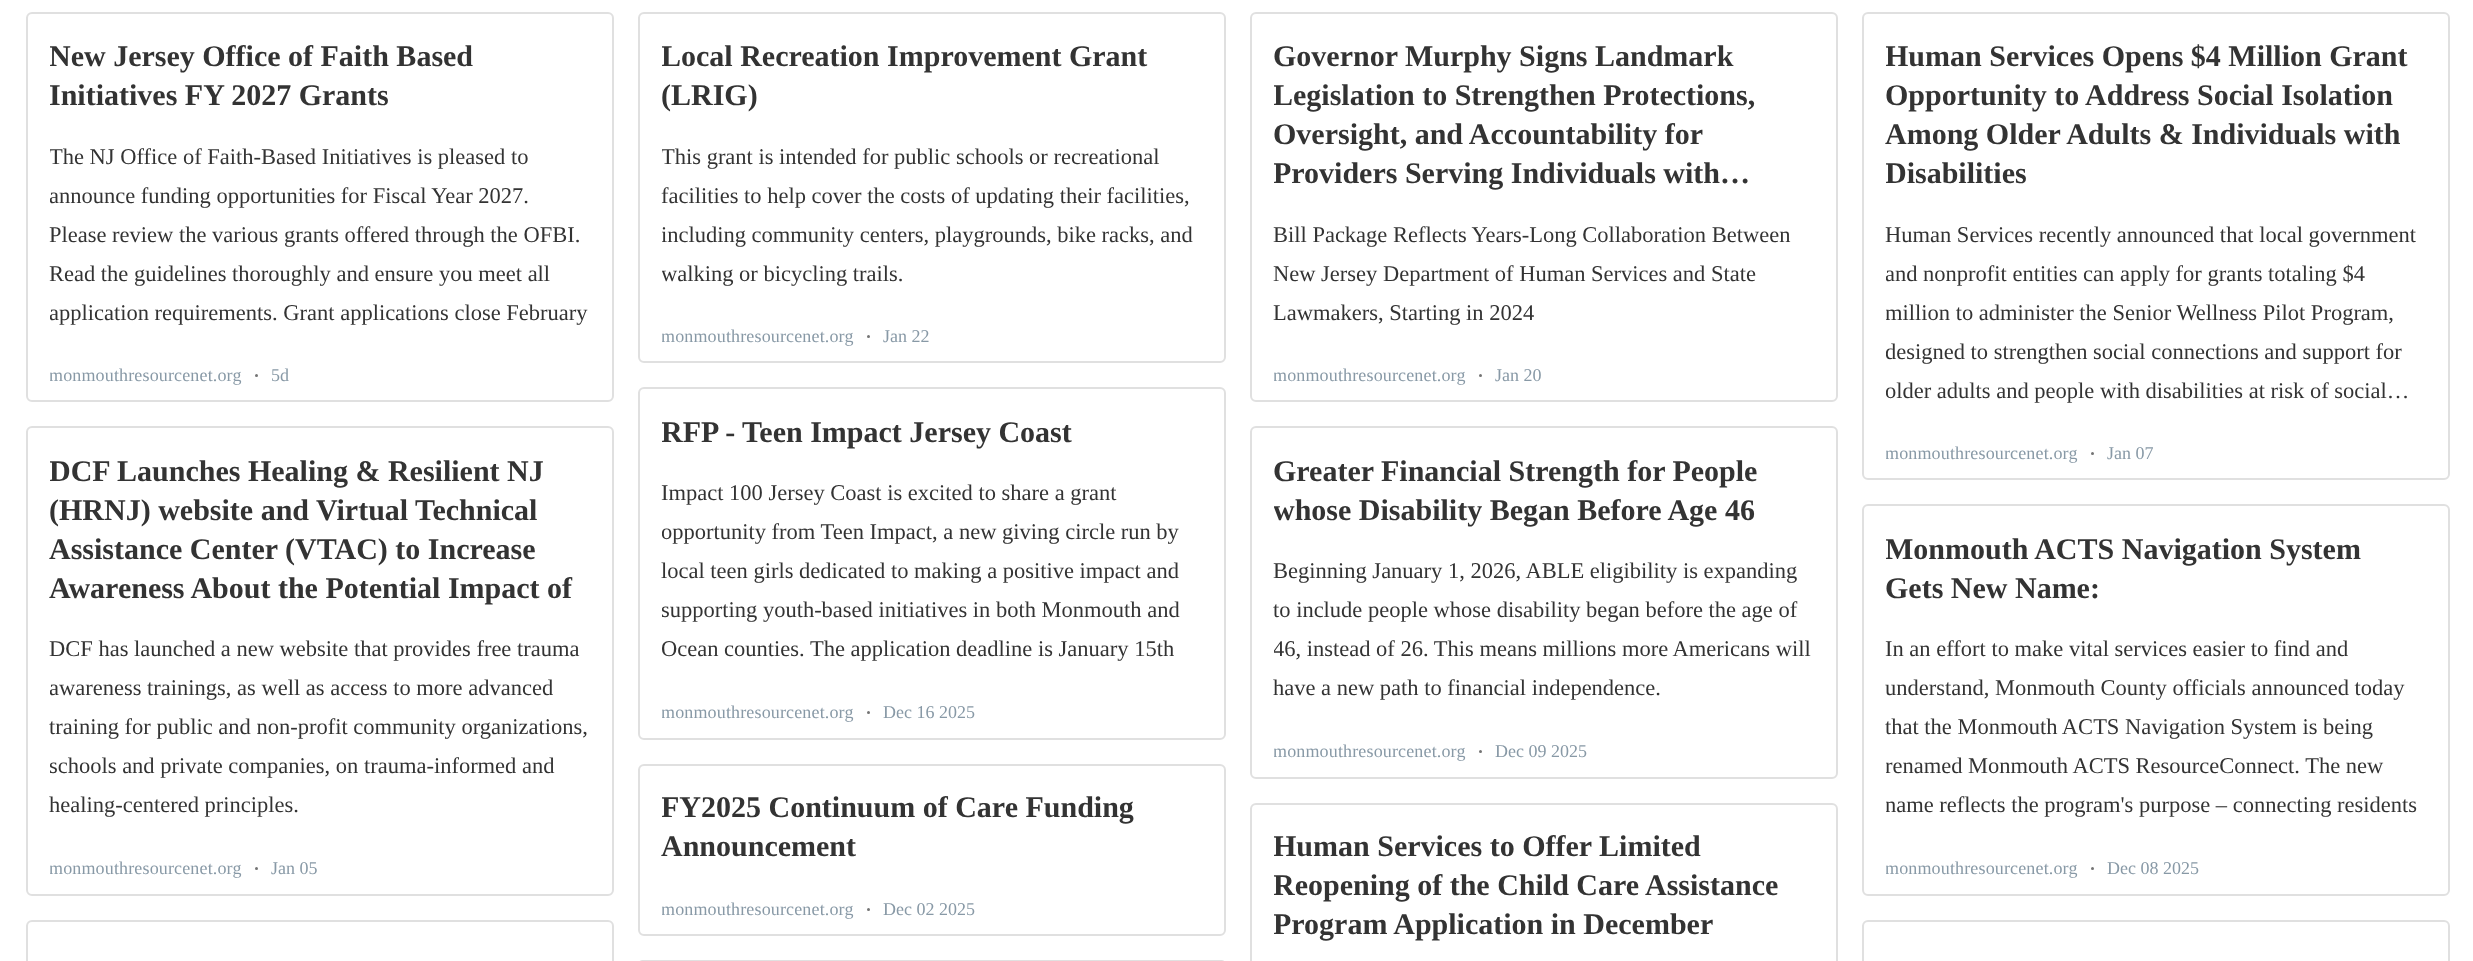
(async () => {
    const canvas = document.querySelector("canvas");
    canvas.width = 2473;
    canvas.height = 961;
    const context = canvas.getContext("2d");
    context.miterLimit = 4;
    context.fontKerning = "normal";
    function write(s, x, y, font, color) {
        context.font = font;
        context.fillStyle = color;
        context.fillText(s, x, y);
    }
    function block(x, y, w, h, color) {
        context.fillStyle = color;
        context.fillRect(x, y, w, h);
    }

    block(0, 0, 2473, 961, "rgb(255, 255, 255)");
    context.beginPath();
    context.roundRect(27, 13, 586, 388, 5);
    context.strokeStyle = "rgb(224, 224, 224)";
    context.lineWidth = 2;
    context.stroke();
    context.save();
    context.beginPath();
    context.rect(50, 36, 540, 78);
    context.clip();
    write("New Jersey Office of Faith Based", 49, 66, "bold 30px Liberation Serif", "rgb(51, 51, 51)");
    write("Initiatives FY 2027 Grants", 49, 105, "bold 30px Liberation Serif", "rgb(51, 51, 51)");
    context.restore();
    context.save();
    context.beginPath();
    context.rect(50, 137, 540, 195);
    context.clip();
    write("The NJ Office of Faith-Based Initiatives is pleased to", 49, 164, "22.5px Liberation Serif", "rgb(51, 51, 51)");
    write("announce funding opportunities for Fiscal Year 2027.", 49, 203, "22.5px Liberation Serif", "rgb(51, 51, 51)");
    context.restore();
    write("Please review the various grants offered through the OFBI.", 49, 242, "22.5px Liberation Serif", "rgb(51, 51, 51)");
    write("Read the guidelines thoroughly and ensure you meet all", 49, 281, "22.5px Liberation Serif", "rgb(51, 51, 51)");
    context.save();
    context.beginPath();
    context.rect(50, 137, 540, 195);
    context.clip();
    write("application requirements. Grant applications close February", 49, 320, "22.5px Liberation Serif", "rgb(51, 51, 51)");
    context.restore();
    context.save();
    context.beginPath();
    context.rect(50, 356, 192, 39);
    context.clip();
    context.letterSpacing = "0.15px";
    write("monmouthresourcenet.org", 49, 381, "18px Liberation Serif", "rgb(136, 153, 166)");
    context.restore();
    context.fillStyle = "rgb(116, 116, 116)";
    context.beginPath();
    context.arc(256.5, 375.5, 1.5, 0, Math.PI * 2);
    context.fill();
    write("5d", 271, 381, "18px Liberation Serif", "rgb(136, 153, 166)");
    context.beginPath();
    context.roundRect(27, 427, 586, 468, 5);
    context.stroke();
    context.save();
    context.beginPath();
    context.rect(50, 450, 540, 156);
    context.clip();
    write("DCF Launches Healing & Resilient NJ", 49, 481, "bold 30px Liberation Serif", "rgb(51, 51, 51)");
    context.restore();
    write("(HRNJ) website and Virtual Technical", 49, 520, "bold 30px Liberation Serif", "rgb(51, 51, 51)");
    write("Assistance Center (VTAC) to Increase", 49, 559, "bold 30px Liberation Serif", "rgb(51, 51, 51)");
    write("Awareness About the Potential Impact of", 49, 598, "bold 30px Liberation Serif", "rgb(51, 51, 51)");
    write("DCF has launched a new website that provides free trauma", 49, 656, "22.5px Liberation Serif", "rgb(51, 51, 51)");
    context.save();
    context.beginPath();
    context.rect(50, 629, 540, 195);
    context.clip();
    write("awareness trainings, as well as access to more advanced", 49, 695, "22.5px Liberation Serif", "rgb(51, 51, 51)");
    context.restore();
    write("training for public and non-profit community organizations,", 49, 734, "22.5px Liberation Serif", "rgb(51, 51, 51)");
    context.save();
    context.beginPath();
    context.rect(50, 629, 540, 195);
    context.clip();
    write("schools and private companies, on trauma-informed and", 49, 773, "22.5px Liberation Serif", "rgb(51, 51, 51)");
    context.restore();
    write("healing-centered principles.", 49, 812, "22.5px Liberation Serif", "rgb(51, 51, 51)");
    context.save();
    context.beginPath();
    context.rect(50, 848, 192, 40);
    context.clip();
    context.letterSpacing = "0.15px";
    write("monmouthresourcenet.org", 49, 874, "18px Liberation Serif", "rgb(136, 153, 166)");
    context.restore();
    context.fillStyle = "rgb(116, 116, 116)";
    context.beginPath();
    context.arc(256.5, 868.5, 1.5, 0, Math.PI * 2);
    context.fill();
    write("Jan 05", 271, 874, "18px Liberation Serif", "rgb(136, 153, 166)");
    context.beginPath();
    context.roundRect(27, 921, 586, 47, 5);
    context.stroke();
    context.beginPath();
    context.roundRect(639, 13, 586, 349, 5);
    context.stroke();
    context.save();
    context.beginPath();
    context.rect(662, 36, 540, 78);
    context.clip();
    write("Local Recreation Improvement Grant", 661, 66, "bold 30px Liberation Serif", "rgb(51, 51, 51)");
    context.restore();
    write("(LRIG)", 661, 105, "bold 30px Liberation Serif", "rgb(51, 51, 51)");
    context.save();
    context.beginPath();
    context.rect(662, 137, 540, 156);
    context.clip();
    write("This grant is intended for public schools or recreational", 661, 164, "22.5px Liberation Serif", "rgb(51, 51, 51)");
    context.restore();
    write("facilities to help cover the costs of updating their facilities,", 661, 203, "22.5px Liberation Serif", "rgb(51, 51, 51)");
    context.save();
    context.beginPath();
    context.rect(662, 137, 540, 156);
    context.clip();
    write("including community centers, playgrounds, bike racks, and", 661, 242, "22.5px Liberation Serif", "rgb(51, 51, 51)");
    write("walking or bicycling trails.", 661, 281, "22.5px Liberation Serif", "rgb(51, 51, 51)");
    context.restore();
    context.save();
    context.beginPath();
    context.rect(662, 317, 192, 39);
    context.clip();
    context.letterSpacing = "0.15px";
    write("monmouthresourcenet.org", 661, 342, "18px Liberation Serif", "rgb(136, 153, 166)");
    context.restore();
    context.fillStyle = "rgb(116, 116, 116)";
    context.beginPath();
    context.arc(868.5, 336.5, 1.5, 0, Math.PI * 2);
    context.fill();
    write("Jan 22", 883, 342, "18px Liberation Serif", "rgb(136, 153, 166)");
    context.beginPath();
    context.roundRect(639, 388, 586, 351, 5);
    context.stroke();
    context.save();
    context.beginPath();
    context.rect(662, 411, 540, 39);
    context.clip();
    write("RFP - Teen Impact Jersey Coast", 661, 442, "bold 30px Liberation Serif", "rgb(51, 51, 51)");
    context.restore();
    write("Impact 100 Jersey Coast is excited to share a grant", 661, 500, "22.5px Liberation Serif", "rgb(51, 51, 51)");
    context.save();
    context.beginPath();
    context.rect(662, 473, 540, 195);
    context.clip();
    write("opportunity from Teen Impact, a new giving circle run by", 661, 539, "22.5px Liberation Serif", "rgb(51, 51, 51)");
    context.restore();
    write("local teen girls dedicated to making a positive impact and", 661, 578, "22.5px Liberation Serif", "rgb(51, 51, 51)");
    context.save();
    context.beginPath();
    context.rect(662, 473, 540, 195);
    context.clip();
    write("supporting youth-based initiatives in both Monmouth and", 661, 617, "22.5px Liberation Serif", "rgb(51, 51, 51)");
    write("Ocean counties. The application deadline is January 15th", 661, 656, "22.5px Liberation Serif", "rgb(51, 51, 51)");
    context.restore();
    context.save();
    context.beginPath();
    context.rect(662, 692, 192, 40);
    context.clip();
    context.letterSpacing = "0.15px";
    write("monmouthresourcenet.org", 661, 718, "18px Liberation Serif", "rgb(136, 153, 166)");
    context.restore();
    context.fillStyle = "rgb(116, 116, 116)";
    context.beginPath();
    context.arc(868.5, 712.5, 1.5, 0, Math.PI * 2);
    context.fill();
    write("Dec 16 2025", 883, 718, "18px Liberation Serif", "rgb(136, 153, 166)");
    context.beginPath();
    context.roundRect(639, 765, 586, 170, 5);
    context.stroke();
    context.save();
    context.beginPath();
    context.rect(662, 788, 540, 78);
    context.clip();
    write("FY2025 Continuum of Care Funding", 661, 817, "bold 30px Liberation Serif", "rgb(51, 51, 51)");
    context.restore();
    write("Announcement", 661, 856, "bold 30px Liberation Serif", "rgb(51, 51, 51)");
    context.save();
    context.beginPath();
    context.rect(662, 890, 192, 39);
    context.clip();
    context.letterSpacing = "0.15px";
    write("monmouthresourcenet.org", 661, 915, "18px Liberation Serif", "rgb(136, 153, 166)");
    context.restore();
    context.fillStyle = "rgb(116, 116, 116)";
    context.beginPath();
    context.arc(868.5, 909.5, 1.5, 0, Math.PI * 2);
    context.fill();
    write("Dec 02 2025", 883, 915, "18px Liberation Serif", "rgb(136, 153, 166)");
    context.beginPath();
    context.roundRect(639, 961, 586, 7, 5);
    context.stroke();
    context.beginPath();
    context.roundRect(1251, 13, 586, 388, 5);
    context.stroke();
    write("Governor Murphy Signs Landmark", 1273, 66, "bold 30px Liberation Serif", "rgb(51, 51, 51)");
    context.save();
    context.beginPath();
    context.rect(1274, 36, 540, 156);
    context.clip();
    write("Legislation to Strengthen Protections,", 1273, 105, "bold 30px Liberation Serif", "rgb(51, 51, 51)");
    context.restore();
    write("Oversight, and Accountability for", 1273, 144, "bold 30px Liberation Serif", "rgb(51, 51, 51)");
    context.save();
    context.beginPath();
    context.rect(1274, 36, 540, 156);
    context.clip();
    write("Providers Serving Individuals with…", 1273, 183, "bold 30px Liberation Serif", "rgb(51, 51, 51)");
    context.restore();
    write("Bill Package Reflects Years-Long Collaboration Between", 1273, 242, "22.5px Liberation Serif", "rgb(51, 51, 51)");
    write("New Jersey Department of Human Services and State", 1273, 281, "22.5px Liberation Serif", "rgb(51, 51, 51)");
    write("Lawmakers, Starting in 2024", 1273, 320, "22.5px Liberation Serif", "rgb(51, 51, 51)");
    context.save();
    context.beginPath();
    context.rect(1274, 356, 192, 39);
    context.clip();
    context.letterSpacing = "0.15px";
    write("monmouthresourcenet.org", 1273, 381, "18px Liberation Serif", "rgb(136, 153, 166)");
    context.restore();
    context.fillStyle = "rgb(116, 116, 116)";
    context.beginPath();
    context.arc(1480.5, 375.5, 1.5, 0, Math.PI * 2);
    context.fill();
    write("Jan 20", 1495, 381, "18px Liberation Serif", "rgb(136, 153, 166)");
    context.beginPath();
    context.roundRect(1251, 427, 586, 351, 5);
    context.stroke();
    write("Greater Financial Strength for People", 1273, 481, "bold 30px Liberation Serif", "rgb(51, 51, 51)");
    context.save();
    context.beginPath();
    context.rect(1274, 450, 540, 78);
    context.clip();
    write("whose Disability Began Before Age 46", 1273, 520, "bold 30px Liberation Serif", "rgb(51, 51, 51)");
    context.restore();
    write("Beginning January 1, 2026, ABLE eligibility is expanding", 1273, 578, "22.5px Liberation Serif", "rgb(51, 51, 51)");
    write("to include people whose disability began before the age of", 1273, 617, "22.5px Liberation Serif", "rgb(51, 51, 51)");
    context.save();
    context.beginPath();
    context.rect(1274, 551, 540, 156);
    context.clip();
    write("46, instead of 26. This means millions more Americans will", 1273, 656, "22.5px Liberation Serif", "rgb(51, 51, 51)");
    context.restore();
    write("have a new path to financial independence.", 1273, 695, "22.5px Liberation Serif", "rgb(51, 51, 51)");
    context.save();
    context.beginPath();
    context.rect(1274, 731, 192, 40);
    context.clip();
    context.letterSpacing = "0.15px";
    write("monmouthresourcenet.org", 1273, 757, "18px Liberation Serif", "rgb(136, 153, 166)");
    context.restore();
    context.fillStyle = "rgb(116, 116, 116)";
    context.beginPath();
    context.arc(1480.5, 751.5, 1.5, 0, Math.PI * 2);
    context.fill();
    write("Dec 09 2025", 1495, 757, "18px Liberation Serif", "rgb(136, 153, 166)");
    context.beginPath();
    context.roundRect(1251, 804, 586, 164, 5);
    context.stroke();
    context.save();
    context.beginPath();
    context.rect(1274, 827, 540, 117);
    context.clip();
    write("Human Services to Offer Limited", 1273, 856, "bold 30px Liberation Serif", "rgb(51, 51, 51)");
    write("Reopening of the Child Care Assistance", 1273, 895, "bold 30px Liberation Serif", "rgb(51, 51, 51)");
    write("Program Application in December", 1273, 934, "bold 30px Liberation Serif", "rgb(51, 51, 51)");
    context.restore();
    context.beginPath();
    context.roundRect(1863, 13, 586, 466, 5);
    context.stroke();
    context.save();
    context.beginPath();
    context.rect(1886, 36, 540, 156);
    context.clip();
    write("Human Services Opens $4 Million Grant", 1885, 66, "bold 30px Liberation Serif", "rgb(51, 51, 51)");
    context.restore();
    write("Opportunity to Address Social Isolation", 1885, 105, "bold 30px Liberation Serif", "rgb(51, 51, 51)");
    write("Among Older Adults & Individuals with", 1885, 144, "bold 30px Liberation Serif", "rgb(51, 51, 51)");
    context.save();
    context.beginPath();
    context.rect(1886, 36, 540, 156);
    context.clip();
    write("Disabilities", 1885, 183, "bold 30px Liberation Serif", "rgb(51, 51, 51)");
    context.restore();
    write("Human Services recently announced that local government", 1885, 242, "22.5px Liberation Serif", "rgb(51, 51, 51)");
    context.save();
    context.beginPath();
    context.rect(1886, 215, 540, 195);
    context.clip();
    write("and nonprofit entities can apply for grants totaling $4", 1885, 281, "22.5px Liberation Serif", "rgb(51, 51, 51)");
    write("million to administer the Senior Wellness Pilot Program,", 1885, 320, "22.5px Liberation Serif", "rgb(51, 51, 51)");
    write("designed to strengthen social connections and support for", 1885, 359, "22.5px Liberation Serif", "rgb(51, 51, 51)");
    write("older adults and people with disabilities at risk of social…", 1885, 398, "22.5px Liberation Serif", "rgb(51, 51, 51)");
    context.restore();
    context.save();
    context.beginPath();
    context.rect(1886, 434, 192, 39);
    context.clip();
    context.letterSpacing = "0.15px";
    write("monmouthresourcenet.org", 1885, 459, "18px Liberation Serif", "rgb(136, 153, 166)");
    context.restore();
    context.fillStyle = "rgb(116, 116, 116)";
    context.beginPath();
    context.arc(2092.5, 453.5, 1.5, 0, Math.PI * 2);
    context.fill();
    write("Jan 07", 2107, 459, "18px Liberation Serif", "rgb(136, 153, 166)");
    context.beginPath();
    context.roundRect(1863, 505, 586, 390, 5);
    context.stroke();
    context.save();
    context.beginPath();
    context.rect(1886, 528, 540, 78);
    context.clip();
    write("Monmouth ACTS Navigation System", 1885, 559, "bold 30px Liberation Serif", "rgb(51, 51, 51)");
    context.restore();
    write("Gets New Name:", 1885, 598, "bold 30px Liberation Serif", "rgb(51, 51, 51)");
    write("In an effort to make vital services easier to find and", 1885, 656, "22.5px Liberation Serif", "rgb(51, 51, 51)");
    write("understand, Monmouth County officials announced today", 1885, 695, "22.5px Liberation Serif", "rgb(51, 51, 51)");
    write("that the Monmouth ACTS Navigation System is being", 1885, 734, "22.5px Liberation Serif", "rgb(51, 51, 51)");
    context.save();
    context.beginPath();
    context.rect(1886, 629, 540, 195);
    context.clip();
    write("renamed Monmouth ACTS ResourceConnect. The new", 1885, 773, "22.5px Liberation Serif", "rgb(51, 51, 51)");
    write("name reflects the program's purpose – connecting residents", 1885, 812, "22.5px Liberation Serif", "rgb(51, 51, 51)");
    context.restore();
    context.save();
    context.beginPath();
    context.rect(1886, 848, 192, 40);
    context.clip();
    context.letterSpacing = "0.15px";
    write("monmouthresourcenet.org", 1885, 874, "18px Liberation Serif", "rgb(136, 153, 166)");
    context.restore();
    context.fillStyle = "rgb(116, 116, 116)";
    context.beginPath();
    context.arc(2092.5, 868.5, 1.5, 0, Math.PI * 2);
    context.fill();
    write("Dec 08 2025", 2107, 874, "18px Liberation Serif", "rgb(136, 153, 166)");
    context.beginPath();
    context.roundRect(1863, 921, 586, 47, 5);
    context.stroke();
})();
